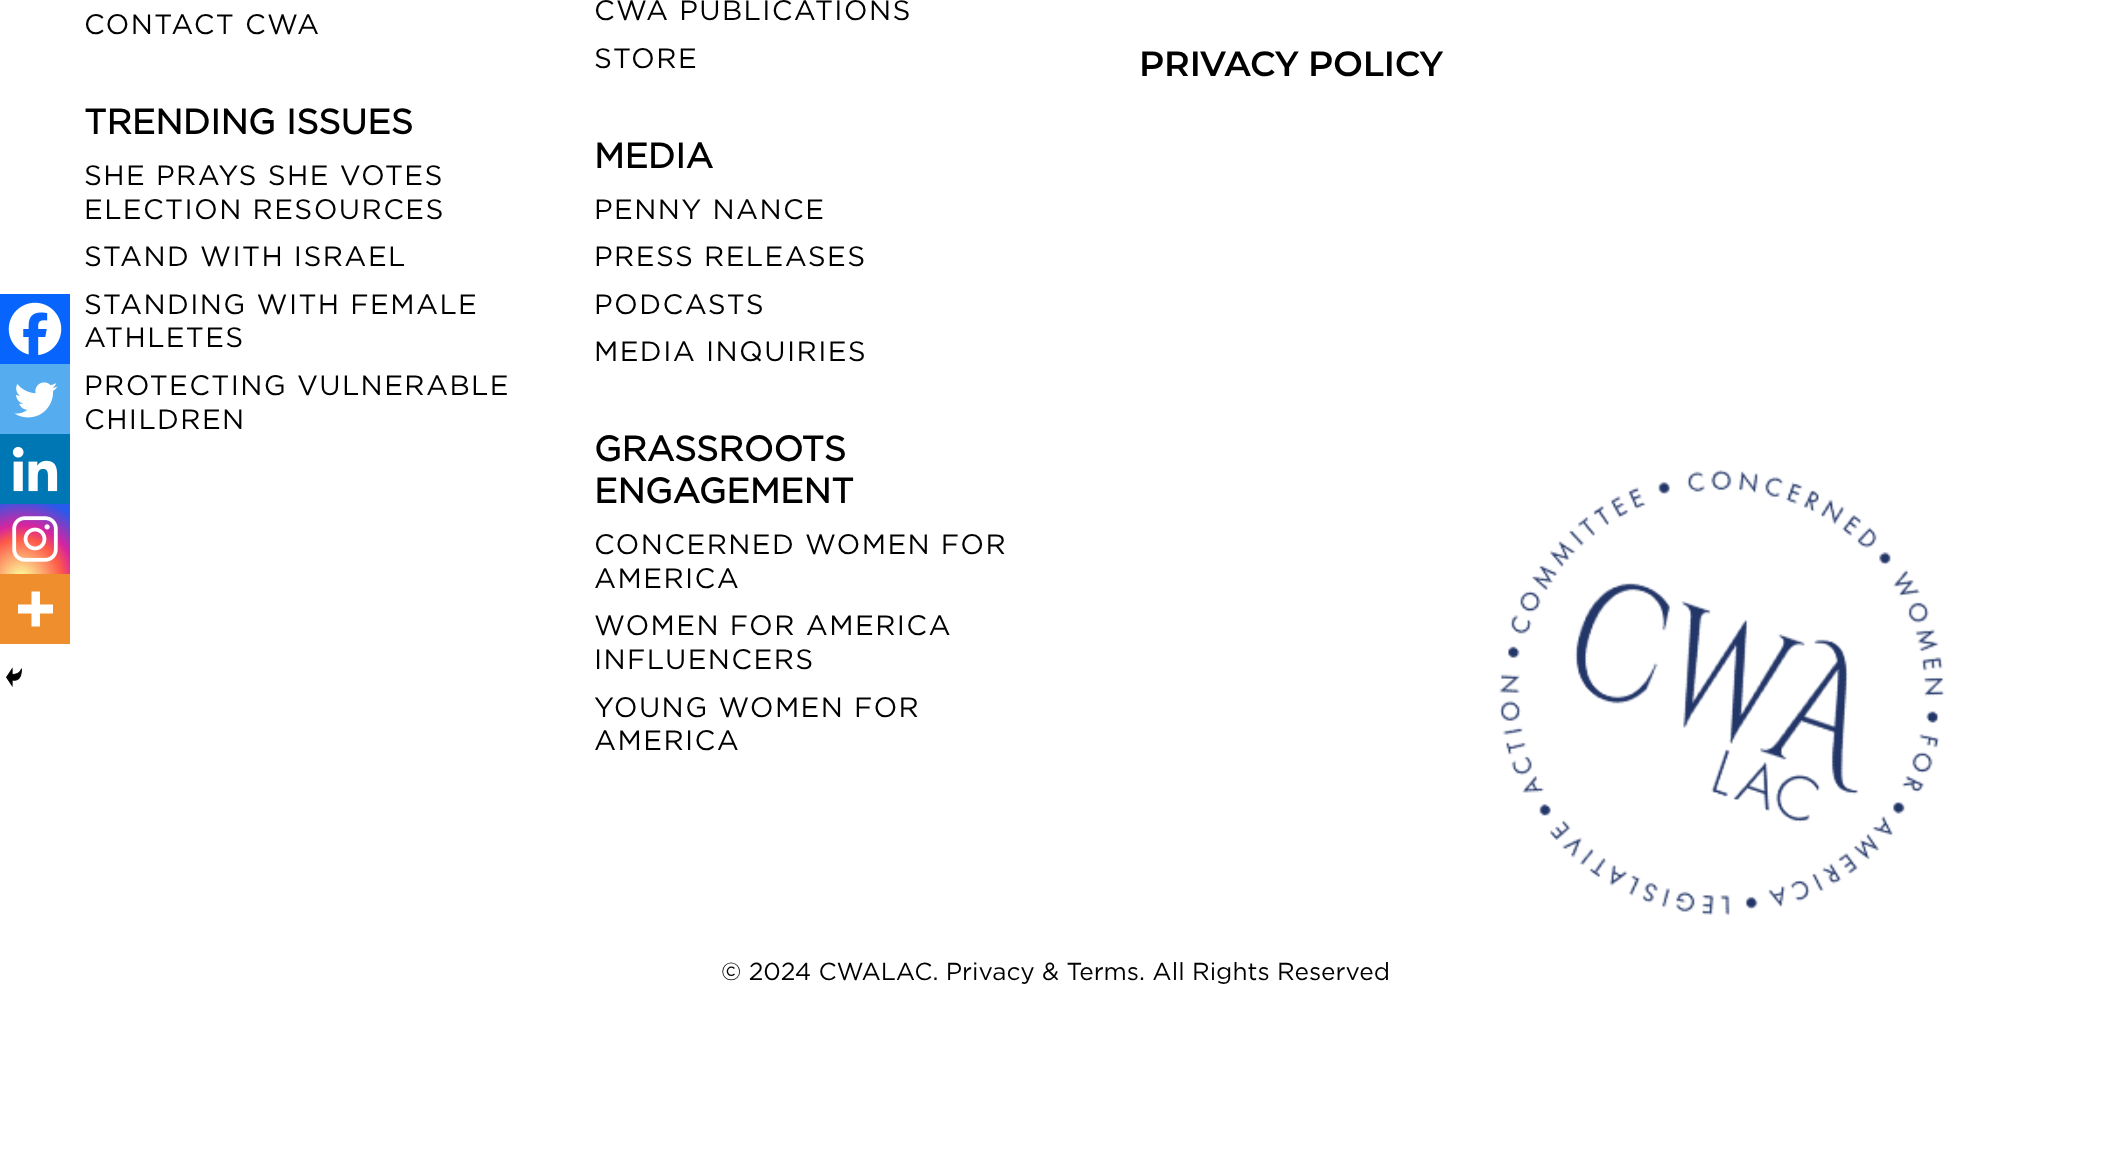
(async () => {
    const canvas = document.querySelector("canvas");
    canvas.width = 2110;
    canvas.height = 1162;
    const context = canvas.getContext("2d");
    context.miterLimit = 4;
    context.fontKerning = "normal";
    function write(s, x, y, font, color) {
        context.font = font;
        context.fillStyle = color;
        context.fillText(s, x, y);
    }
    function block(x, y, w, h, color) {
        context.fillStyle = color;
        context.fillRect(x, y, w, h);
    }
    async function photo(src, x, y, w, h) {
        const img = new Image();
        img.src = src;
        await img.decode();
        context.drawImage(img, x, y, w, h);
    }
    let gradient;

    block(0, 0, 2110, 1162, "rgb(255, 255, 255)");
    block(0, 294, 70, 70, "rgb(7, 101, 254)");
    await photo("media/1.png", 8, 302, 54, 53);
    block(0, 364, 70, 70, "rgb(85, 172, 238)");
    await photo("media/2.png", 14, 382, 44, 36);
    block(0, 434, 70, 70, "rgb(0, 119, 181)");
    await photo("media/3.png", 12, 446, 46, 46);
    gradient = context.createRadialGradient(21, 579, 0, 21, 579, 90);
    gradient.addColorStop(0, "rgb(253, 244, 151)");
    gradient.addColorStop(0.05, "rgb(253, 244, 151)");
    gradient.addColorStop(0.45, "rgb(253, 89, 73)");
    gradient.addColorStop(0.6, "rgb(214, 36, 159)");
    gradient.addColorStop(0.9, "rgb(40, 90, 235)");
    context.fillStyle = gradient;
    context.fillRect(0, 504, 70, 70);
    await photo("media/4.png", 12, 516, 46, 46);
    block(0, 574, 70, 70, "rgb(238, 142, 45)");
    context.fillStyle = "rgb(255, 255, 255)";
    context.beginPath();
    context.moveTo(40, 604.5);
    context.lineTo(40, 591.5);
    context.lineTo(31.5, 591.5);
    context.lineTo(31.5, 604.5);
    context.lineTo(18, 604.5);
    context.lineTo(18, 613.5);
    context.lineTo(31.5, 613.5);
    context.lineTo(31.5, 626.5);
    context.lineTo(40, 626.5);
    context.lineTo(40, 613.5);
    context.lineTo(53, 613.5);
    context.lineTo(53, 604.5);
    context.closePath();
    context.fill("evenodd");
    await photo("media/5.png", 6, 667, 16, 20);
    await photo("media/6.png", 1499, 470, 446, 445);
    context.letterSpacing = "1.4px";
    write("CONTACT CWA", 84, 34, "28px Gotham", "rgb(0, 0, 0)");
    context.letterSpacing = "0px";
    write("TRENDING ISSUES", 84, 134, "bold 35px Gotham", "rgb(0, 0, 0)");
    context.letterSpacing = "1.4px";
    write("SHE PRAYS SHE VOTES", 84, 185, "28px Gotham", "rgb(0, 0, 0)");
    write("ELECTION RESOURCES", 84, 219, "28px Gotham", "rgb(0, 0, 0)");
    write("STAND WITH ISRAEL", 84, 266, "28px Gotham", "rgb(0, 0, 0)");
    write("STANDING WITH FEMALE", 84, 314, "28px Gotham", "rgb(0, 0, 0)");
    write("ATHLETES", 84, 347, "28px Gotham", "rgb(0, 0, 0)");
    write("PROTECTING VULNERABLE", 84, 395, "28px Gotham", "rgb(0, 0, 0)");
    write("CHILDREN", 84, 429, "28px Gotham", "rgb(0, 0, 0)");
    write("CWA PUBLICATIONS", 594, 20, "28px Gotham", "rgb(0, 0, 0)");
    write("STORE", 594, 68, "28px Gotham", "rgb(0, 0, 0)");
    context.letterSpacing = "0px";
    write("MEDIA", 594, 168, "bold 35px Gotham", "rgb(0, 0, 0)");
    context.letterSpacing = "1.4px";
    write("PENNY NANCE", 594, 219, "28px Gotham", "rgb(0, 0, 0)");
    write("PRESS RELEASES", 594, 266, "28px Gotham", "rgb(0, 0, 0)");
    write("PODCASTS", 594, 314, "28px Gotham", "rgb(0, 0, 0)");
    write("MEDIA INQUIRIES", 594, 361, "28px Gotham", "rgb(0, 0, 0)");
    context.letterSpacing = "0px";
    write("GRASSROOTS", 594, 461, "bold 35px Gotham", "rgb(0, 0, 0)");
    write("ENGAGEMENT", 594, 503, "bold 35px Gotham", "rgb(0, 0, 0)");
    context.letterSpacing = "1.4px";
    write("CONCERNED WOMEN FOR", 594, 554, "28px Gotham", "rgb(0, 0, 0)");
    write("AMERICA", 594, 588, "28px Gotham", "rgb(0, 0, 0)");
    write("WOMEN FOR AMERICA", 594, 635, "28px Gotham", "rgb(0, 0, 0)");
    write("INFLUENCERS", 594, 669, "28px Gotham", "rgb(0, 0, 0)");
    write("YOUNG WOMEN FOR", 594, 717, "28px Gotham", "rgb(0, 0, 0)");
    write("AMERICA", 594, 750, "28px Gotham", "rgb(0, 0, 0)");
    context.letterSpacing = "0px";
    write("PRIVACY POLICY", 1139, 76, "600 35px Montserrat", "rgb(0, 0, 0)");
    write("© 2024 CWALAC. Privacy & Terms. All Rights Reserved", 721, 980, "24.5px Gotham", "rgb(0, 0, 0)");
})();
